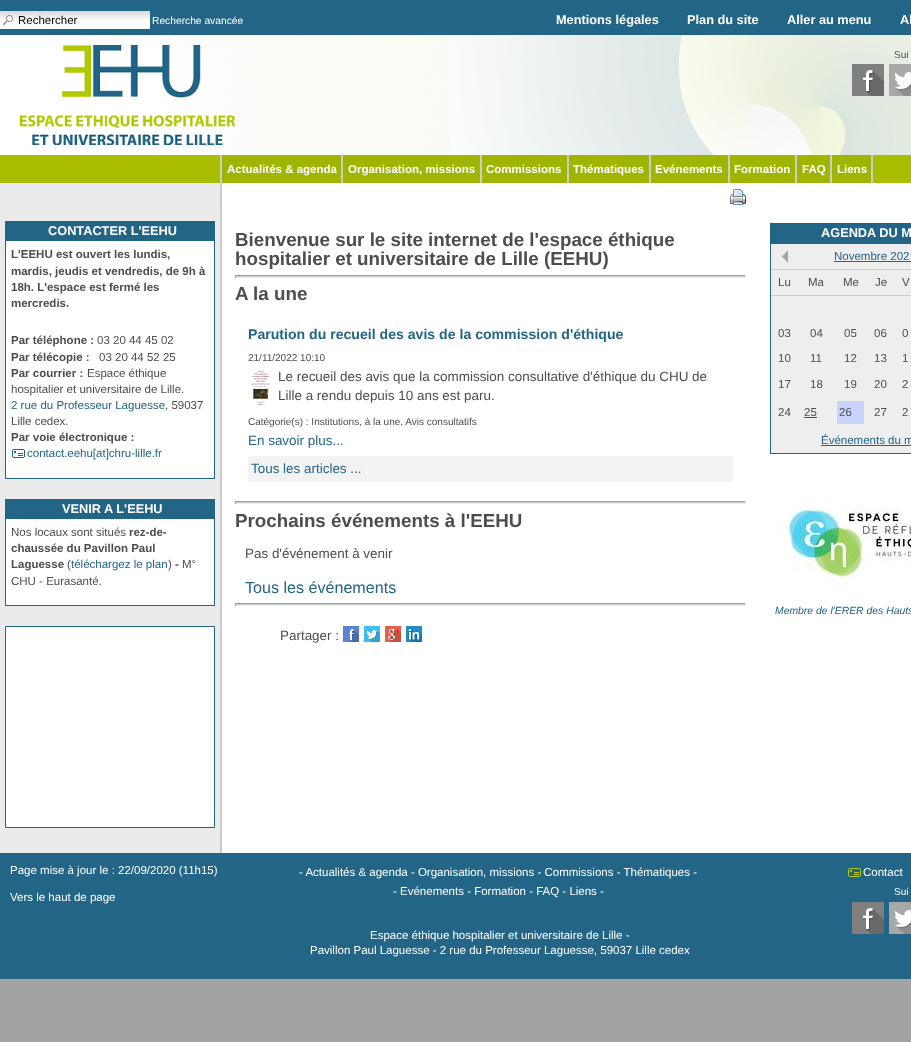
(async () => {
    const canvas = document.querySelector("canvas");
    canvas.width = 911;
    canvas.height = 1042;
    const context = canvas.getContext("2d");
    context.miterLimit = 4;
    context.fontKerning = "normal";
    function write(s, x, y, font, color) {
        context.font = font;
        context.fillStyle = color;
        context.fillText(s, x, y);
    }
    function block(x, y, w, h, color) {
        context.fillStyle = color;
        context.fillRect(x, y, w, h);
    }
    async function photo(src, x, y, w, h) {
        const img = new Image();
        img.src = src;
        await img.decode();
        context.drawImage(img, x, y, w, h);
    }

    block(0, 0, 911, 1042, "rgb(163, 163, 163)");
    block(0, 0, 911, 35, "rgb(34, 101, 134)");
    await photo("media/1.png", 0, 11, 150, 18);
    write("Rechercher", 18, 24, "11.5px Liberation Sans", "rgb(0, 0, 0)");
    write("Recherche avancée", 152, 24, "10.25px Liberation Sans", "rgb(255, 255, 255)");
    write("Mentions légales", 556, 24, "bold 12.75px Liberation Sans", "rgb(255, 255, 255)");
    write("Plan du site", 687, 24, "bold 12.75px Liberation Sans", "rgb(255, 255, 255)");
    write("Aller au menu", 787, 24, "bold 12.75px Liberation Sans", "rgb(255, 255, 255)");
    write("Al", 900, 24, "bold 12.75px Liberation Sans", "rgb(255, 255, 255)");
    block(0, 35, 179, 120, "rgb(255, 255, 255)");
    await photo("media/2.png", 179, 35, 732, 120);
    await photo("media/3.png", 20, 45, 215, 100);
    write("Sui", 894, 58, "10px Liberation Sans", "rgb(77, 77, 77)");
    await photo("media/4.png", 852, 64, 32, 32);
    await photo("media/5.png", 889, 64, 22, 32);
    block(0, 155, 911, 28, "rgb(168, 190, 0)");
    block(220, 155, 2, 28, "rgb(204, 204, 204)");
    block(222, 155, 119, 28, "rgb(160, 181, 0)");
    write("Actualités & agenda", 227, 173, "bold 11.5px Liberation Sans", "rgb(255, 255, 255)");
    block(341, 155, 2, 28, "rgb(204, 204, 204)");
    block(343, 155, 137, 28, "rgb(160, 181, 0)");
    write("Organisation, missions", 348, 173, "bold 11.5px Liberation Sans", "rgb(255, 255, 255)");
    block(480, 155, 2, 28, "rgb(204, 204, 204)");
    block(482, 155, 85, 28, "rgb(160, 181, 0)");
    write("Commissions", 486, 173, "bold 11.5px Liberation Sans", "rgb(255, 255, 255)");
    block(567, 155, 2, 28, "rgb(204, 204, 204)");
    block(569, 155, 80, 28, "rgb(160, 181, 0)");
    write("Thématiques", 573, 173, "bold 11.5px Liberation Sans", "rgb(255, 255, 255)");
    block(649, 155, 2, 28, "rgb(204, 204, 204)");
    block(651, 155, 77, 28, "rgb(160, 181, 0)");
    write("Evénements", 655, 173, "bold 11.5px Liberation Sans", "rgb(255, 255, 255)");
    block(728, 155, 2, 28, "rgb(204, 204, 204)");
    block(730, 155, 65, 28, "rgb(160, 181, 0)");
    write("Formation", 734, 173, "bold 11.5px Liberation Sans", "rgb(255, 255, 255)");
    block(795, 155, 2, 28, "rgb(204, 204, 204)");
    block(797, 155, 33, 28, "rgb(160, 181, 0)");
    write("FAQ", 802, 173, "bold 11.5px Liberation Sans", "rgb(255, 255, 255)");
    block(871, 155, 2, 28, "rgb(204, 204, 204)");
    block(830, 155, 2, 28, "rgb(204, 204, 204)");
    block(832, 155, 39, 28, "rgb(160, 181, 0)");
    write("Liens", 837, 173, "bold 11.5px Liberation Sans", "rgb(255, 255, 255)");
    block(222, 183, 689, 670, "rgb(255, 255, 255)");
    await photo("media/6.png", 0, 183, 222, 670);
    block(6, 241, 208, 237, "rgb(255, 255, 255)");
    context.strokeStyle = "rgb(34, 101, 134)";
    context.strokeRect(5.5, 221.5, 209, 257);
    block(6, 222, 208, 19, "rgb(34, 101, 134)");
    write("CONTACTER L'EEHU", 48, 235, "bold 12.75px Liberation Sans", "rgb(255, 255, 255)");
    write("L'EEHU est ouvert les lundis,", 11, 258, "bold 11.5px Liberation Sans", "rgb(77, 77, 77)");
    write("mardis, jeudis et vendredis, de 9h à", 11, 275, "bold 11.5px Liberation Sans", "rgb(77, 77, 77)");
    write("18h. L'espace est fermé les", 11, 291, "bold 11.5px Liberation Sans", "rgb(77, 77, 77)");
    write("mercredis.", 11, 307, "bold 11.5px Liberation Sans", "rgb(77, 77, 77)");
    write("Par téléphone :", 11, 344, "bold 11.5px Liberation Sans", "rgb(77, 77, 77)");
    write("03 20 44 45 02", 97, 344, "11.5px Liberation Sans", "rgb(77, 77, 77)");
    write("Par télécopie :", 11, 361, "bold 11.5px Liberation Sans", "rgb(77, 77, 77)");
    write("03 20 44 52 25", 99, 361, "11.5px Liberation Sans", "rgb(77, 77, 77)");
    write("Par courrier :", 11, 377, "bold 11.5px Liberation Sans", "rgb(77, 77, 77)");
    write("Espace éthique", 87, 377, "11.5px Liberation Sans", "rgb(77, 77, 77)");
    write("hospitalier et universitaire de Lille.", 11, 393, "11.5px Liberation Sans", "rgb(77, 77, 77)");
    write("2 rue du Professeur Laguesse", 11, 409, "11.5px Liberation Sans", "rgb(34, 101, 134)");
    write(", 59037", 165, 409, "11.5px Liberation Sans", "rgb(77, 77, 77)");
    write("Lille cedex.", 11, 425, "11.5px Liberation Sans", "rgb(77, 77, 77)");
    write("Par voie électronique :", 11, 441, "bold 11.5px Liberation Sans", "rgb(77, 77, 77)");
    await photo("media/7.png", 12, 449, 13, 9);
    write("contact.eehu[at]chru-lille.fr", 27, 457, "11.5px Liberation Sans", "rgb(34, 101, 134)");
    block(6, 519, 208, 86, "rgb(255, 255, 255)");
    context.strokeRect(5.5, 499.5, 209, 106);
    block(6, 500, 208, 19, "rgb(34, 101, 134)");
    write("VENIR A L'EEHU", 62, 513, "bold 12.75px Liberation Sans", "rgb(255, 255, 255)");
    write("Nos locaux sont situés", 11, 536, "11.5px Liberation Sans", "rgb(77, 77, 77)");
    write("rez-de-", 129, 536, "bold 11.5px Liberation Sans", "rgb(77, 77, 77)");
    write("chaussée du Pavillon Paul", 11, 552, "bold 11.5px Liberation Sans", "rgb(77, 77, 77)");
    write("Laguesse", 11, 568, "bold 11.5px Liberation Sans", "rgb(77, 77, 77)");
    write("(", 67, 568, "11.5px Liberation Sans", "rgb(77, 77, 77)");
    write("téléchargez le plan", 71, 568, "11.5px Liberation Sans", "rgb(34, 101, 134)");
    write(")", 168, 568, "11.5px Liberation Sans", "rgb(77, 77, 77)");
    write("-", 175, 568, "bold 11.5px Liberation Sans", "rgb(77, 77, 77)");
    write("M°", 182, 568, "11.5px Liberation Sans", "rgb(77, 77, 77)");
    write("CHU - Eurasanté.", 11, 585, "11.5px Liberation Sans", "rgb(77, 77, 77)");
    context.fillStyle = "rgb(255, 255, 255)";
    context.beginPath();
    context.rect(5.5, 626.5, 209, 201);
    context.fill();
    context.stroke();
    await photo("media/8.png", 730, 189, 16, 16);
    write("Bienvenue sur le site internet de l'espace éthique", 235, 246, "bold 18.8px Liberation Sans", "rgb(77, 77, 77)");
    write("hospitalier et universitaire de Lille (EEHU)", 235, 265, "bold 18.8px Liberation Sans", "rgb(77, 77, 77)");
    block(235, 276, 511, 1, "rgb(204, 204, 204)");
    block(235, 275, 511, 1, "rgb(159, 159, 159)");
    block(745, 275, 1, 3, "rgb(238, 238, 238)");
    block(235, 277, 511, 1, "rgb(238, 238, 238)");
    block(235, 275, 1, 3, "rgb(159, 159, 159)");
    write("A la une", 235, 300, "bold 18.8px Liberation Sans", "rgb(77, 77, 77)");
    write("Parution du recueil des avis de la commission d'éthique", 248, 339, "bold 14.1px Liberation Sans", "rgb(34, 101, 134)");
    write("21/11/2022 10:10", 248, 361, "10px Liberation Sans", "rgb(77, 77, 77)");
    await photo("media/9.png", 248, 367, 24, 40);
    write("Le recueil des avis que la commission consultative d'éthique du CHU de", 278, 381, "13.45px Liberation Sans", "rgb(77, 77, 77)");
    write("Lille a rendu depuis 10 ans est paru.", 278, 400, "13.45px Liberation Sans", "rgb(77, 77, 77)");
    write("Catégorie(s) : Institutions, à la une, Avis consultatifs", 248, 425, "10px Liberation Sans", "rgb(77, 77, 77)");
    write("En savoir plus...", 248, 445, "13.45px Liberation Sans", "rgb(34, 101, 134)");
    block(248, 456, 485, 26, "rgb(243, 243, 243)");
    write("Tous les articles ...", 251, 473, "13.45px Liberation Sans", "rgb(34, 101, 134)");
    block(235, 502, 511, 1, "rgb(204, 204, 204)");
    block(235, 501, 511, 1, "rgb(159, 159, 159)");
    block(745, 501, 1, 3, "rgb(238, 238, 238)");
    block(235, 503, 511, 1, "rgb(238, 238, 238)");
    block(235, 501, 1, 3, "rgb(159, 159, 159)");
    write("Prochains événements à l'EEHU", 235, 527, "bold 18.8px Liberation Sans", "rgb(77, 77, 77)");
    write("Pas d'événement à venir", 245, 558, "13.45px Liberation Sans", "rgb(77, 77, 77)");
    write("Tous les événements", 245, 593, "16.1px Liberation Sans", "rgb(34, 101, 134)");
    block(235, 604, 511, 1, "rgb(204, 204, 204)");
    block(235, 603, 511, 1, "rgb(159, 159, 159)");
    block(745, 603, 1, 3, "rgb(238, 238, 238)");
    block(235, 605, 511, 1, "rgb(238, 238, 238)");
    block(235, 603, 1, 3, "rgb(159, 159, 159)");
    write("Partager :", 280, 640, "13.45px Liberation Sans", "rgb(77, 77, 77)");
    await photo("media/10.png", 343, 626, 16, 16);
    await photo("media/11.png", 364, 626, 16, 16);
    await photo("media/12.png", 385, 626, 16, 16);
    await photo("media/13.png", 406, 626, 16, 16);
    block(771, 244, 140, 209, "rgb(238, 238, 238)");
    context.strokeRect(770.5, 223.5, 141, 230);
    block(771, 224, 140, 20, "rgb(34, 101, 134)");
    write("AGENDA DU M", 821, 237, "bold 12.75px Liberation Sans", "rgb(255, 255, 255)");
    await photo("media/14.png", 782, 251, 6, 11);
    write("Novembre 202", 834, 260, "11.5px Liberation Sans", "rgb(34, 101, 134)");
    block(834, 261, 77, 1, "rgb(34, 101, 134)");
    write("Lu", 778, 286, "11.5px Liberation Sans", "rgb(77, 77, 77)");
    write("Ma", 808, 286, "11.5px Liberation Sans", "rgb(77, 77, 77)");
    write("Me", 843, 286, "11.5px Liberation Sans", "rgb(77, 77, 77)");
    write("Je", 875, 286, "11.5px Liberation Sans", "rgb(77, 77, 77)");
    block(771, 269, 140, 1, "rgb(204, 204, 204)");
    block(771, 295, 140, 1, "rgb(204, 204, 204)");
    write("V", 902, 286, "11.5px Liberation Sans", "rgb(77, 77, 77)");
    write("03", 778, 337, "11.5px Liberation Sans", "rgb(77, 77, 77)");
    write("04", 810, 337, "11.5px Liberation Sans", "rgb(77, 77, 77)");
    write("05", 844, 337, "11.5px Liberation Sans", "rgb(77, 77, 77)");
    write("06", 874, 337, "11.5px Liberation Sans", "rgb(77, 77, 77)");
    write("0", 902, 337, "11.5px Liberation Sans", "rgb(77, 77, 77)");
    write("10", 778, 362, "11.5px Liberation Sans", "rgb(77, 77, 77)");
    write("11", 810, 362, "11.5px Liberation Sans", "rgb(77, 77, 77)");
    write("12", 844, 362, "11.5px Liberation Sans", "rgb(77, 77, 77)");
    write("13", 874, 362, "11.5px Liberation Sans", "rgb(77, 77, 77)");
    write("1", 902, 362, "11.5px Liberation Sans", "rgb(77, 77, 77)");
    write("17", 778, 388, "11.5px Liberation Sans", "rgb(77, 77, 77)");
    write("18", 810, 388, "11.5px Liberation Sans", "rgb(77, 77, 77)");
    write("19", 844, 388, "11.5px Liberation Sans", "rgb(77, 77, 77)");
    write("20", 874, 388, "11.5px Liberation Sans", "rgb(77, 77, 77)");
    write("2", 902, 388, "11.5px Liberation Sans", "rgb(77, 77, 77)");
    write("24", 778, 416, "11.5px Liberation Sans", "rgb(77, 77, 77)");
    write("25", 804, 416, "11.5px Liberation Sans", "rgb(77, 77, 77)");
    block(804, 417, 13, 1, "rgb(77, 77, 77)");
    block(837, 401, 27, 23, "rgb(199, 213, 254)");
    write("26", 839, 416, "11.5px Liberation Sans", "rgb(77, 77, 77)");
    write("27", 874, 416, "11.5px Liberation Sans", "rgb(77, 77, 77)");
    write("2", 902, 416, "11.5px Liberation Sans", "rgb(77, 77, 77)");
    write("Événements du m", 821, 444, "11.5px Liberation Sans", "rgb(34, 101, 134)");
    block(821, 445, 90, 1, "rgb(34, 101, 134)");
    await photo("media/15.png", 775, 507, 136, 79);
    write("Membre de l'ERER des Hauts", 775, 614, "italic 10.4px Liberation Sans", "rgb(34, 101, 134)");
    block(0, 853, 911, 126, "rgb(34, 101, 134)");
    write("Page mise à jour le : 22/09/2020 (11h15)", 10, 874, "11.5px Liberation Sans", "rgb(255, 255, 255)");
    write("Vers le haut de page", 10, 901, "11.5px Liberation Sans", "rgb(255, 255, 255)");
    write("- Actualités & agenda - Organisation, missions - Commissions - Thématiques -", 299, 876, "11.5px Liberation Sans", "rgb(255, 255, 255)");
    write("- Evénements - Formation - FAQ - Liens -", 393, 895, "11.5px Liberation Sans", "rgb(255, 255, 255)");
    write("Espace éthique hospitalier et universitaire de Lille -", 370, 939, "11.5px Liberation Sans", "rgb(255, 255, 255)");
    write("Pavillon Paul Laguesse - 2 rue du Professeur Laguesse, 59037 Lille cedex", 310, 954, "11.5px Liberation Sans", "rgb(255, 255, 255)");
    await photo("media/16.png", 848, 868, 13, 9);
    write("Contact", 863, 876, "11.5px Liberation Sans", "rgb(255, 255, 255)");
    write("Sui", 894, 895, "10px Liberation Sans", "rgb(255, 255, 255)");
    await photo("media/4.png", 852, 902, 32, 32);
    await photo("media/5.png", 889, 902, 22, 32);
})();
